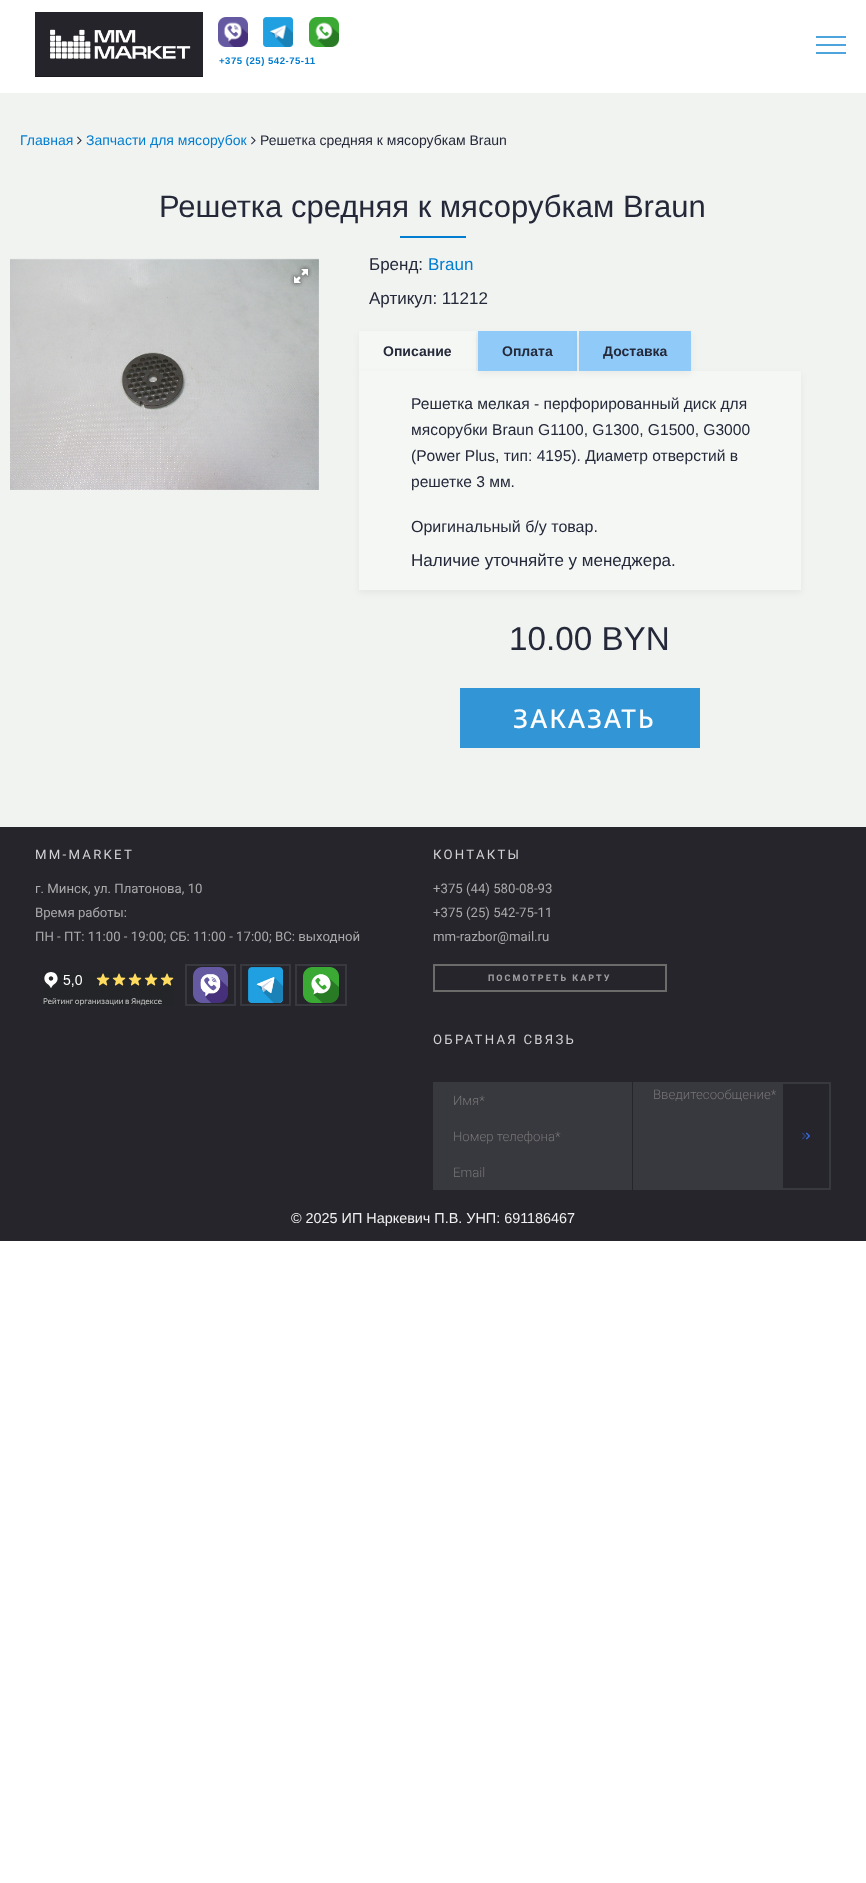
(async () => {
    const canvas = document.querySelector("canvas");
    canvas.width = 866;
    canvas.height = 1883;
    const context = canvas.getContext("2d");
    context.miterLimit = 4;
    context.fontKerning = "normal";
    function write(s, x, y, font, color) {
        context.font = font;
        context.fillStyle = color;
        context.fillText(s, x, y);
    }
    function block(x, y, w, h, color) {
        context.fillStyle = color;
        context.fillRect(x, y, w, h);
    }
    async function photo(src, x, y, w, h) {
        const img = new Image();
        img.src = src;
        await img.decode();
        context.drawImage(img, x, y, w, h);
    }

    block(0, 0, 866, 1883, "rgb(255, 255, 255)");
    await photo("media/1.png", 35, 12, 168, 65);
    block(816, 44, 30, 2, "rgb(78, 164, 221)");
    block(816, 36, 30, 2, "rgb(78, 164, 221)");
    block(816, 52, 30, 2, "rgb(78, 164, 221)");
    await photo("media/2.png", 218, 17, 30, 30);
    await photo("media/3.png", 263, 17, 30, 30);
    await photo("media/4.png", 309, 17, 30, 30);
    context.letterSpacing = "0.5px";
    write("+375 (25) 542-75-11", 219, 64, "bold 9.6px Liberation Sans", "rgb(2, 125, 207)");
    block(0, 93, 866, 734, "rgb(241, 243, 241)");
    context.letterSpacing = "0px";
    write("Главная", 20, 145, "14px Liberation Sans", "rgb(2, 125, 207)");
    await photo("media/5.png", 77, 136, 5, 9);
    write("Запчасти для мясорубок", 86, 145, "14px Liberation Sans", "rgb(2, 125, 207)");
    await photo("media/5.png", 251, 136, 5, 9);
    write("Решетка средняя к мясорубкам Braun", 260, 145, "14px Liberation Sans", "rgb(36, 40, 56)");
    write("Решетка средняя к мясорубкам Braun", 159, 217, "31px Liberation Sans", "rgb(36, 40, 56)");
    block(400, 236, 66, 2, "rgb(2, 125, 207)");
    await photo("media/6.png", 10, 258, 309, 232);
    await photo("media/7.png", 290, 265, 22, 22);
    write("Бренд:", 369, 270, "17px Liberation Sans", "rgb(36, 40, 56)");
    write("Braun", 428, 270, "17px Liberation Sans", "rgb(2, 125, 207)");
    write("Артикул: 11212", 369, 304, "17px Liberation Sans", "rgb(36, 40, 56)");
    context.fillStyle = "rgba(0, 0, 0, 0.05)";
    context.filter = "blur(3.5px)";
    context.beginPath();
    context.rect(359, 334, 117, 40);
    context.fill();
    context.filter = "none";
    block(359, 331, 117, 40, "rgb(245, 247, 245)");
    write("Описание", 383, 356, "bold 14px Liberation Sans", "rgb(36, 40, 56)");
    context.fillStyle = "rgba(0, 0, 0, 0.05)";
    context.filter = "blur(3.5px)";
    context.beginPath();
    context.rect(359, 374, 442, 219);
    context.fill();
    context.filter = "none";
    block(359, 371, 442, 219, "rgb(245, 247, 245)");
    context.fillStyle = "rgba(0, 0, 0, 0.05)";
    context.filter = "blur(3.5px)";
    context.beginPath();
    context.rect(478, 334, 99, 40);
    context.fill();
    context.filter = "none";
    block(478, 331, 99, 40, "rgb(144, 202, 249)");
    write("Оплата", 502, 356, "bold 14px Liberation Sans", "rgb(36, 40, 56)");
    context.fillStyle = "rgba(0, 0, 0, 0.05)";
    context.filter = "blur(3.5px)";
    context.beginPath();
    context.rect(579, 334, 112, 40);
    context.fill();
    context.filter = "none";
    block(579, 331, 112, 40, "rgb(144, 202, 249)");
    write("Доставка", 603, 356, "bold 14px Liberation Sans", "rgb(36, 40, 56)");
    write("Решетка мелкая - перфорированный диск для", 411, 409, "15.6px Liberation Sans", "rgb(36, 40, 56)");
    write("мясорубки Braun G1100, G1300, G1500, G3000", 411, 435, "15.6px Liberation Sans", "rgb(36, 40, 56)");
    write("(Power Plus, тип: 4195). Диаметр отверстий в", 411, 461, "15.6px Liberation Sans", "rgb(36, 40, 56)");
    write("решетке 3 мм.", 411, 487, "15.6px Liberation Sans", "rgb(36, 40, 56)");
    write("Оригинальный б/у товар.", 411, 532, "16px Liberation Sans", "rgb(36, 40, 56)");
    write("Наличие уточняйте у менеджера.", 411, 566, "17px Liberation Sans", "rgb(36, 40, 56)");
    write("10.00 BYN", 509, 650, "33.25px Liberation Sans", "rgb(36, 40, 56)");
    block(460, 688, 240, 60, "rgb(50, 149, 214)");
    context.letterSpacing = "2px";
    write("ЗАКАЗАТЬ", 513, 728, "500 26px Noto Sans", "rgb(252, 253, 252)");
    block(0, 827, 866, 414, "rgb(37, 37, 43)");
    context.letterSpacing = "2.25px";
    write("MM-MARKET", 35, 859, "13.2px Roboto", "rgb(211, 211, 213)");
    context.letterSpacing = "0px";
    write("г. Минск, ул. Платонова, 10", 35, 893, "13.2px Roboto", "rgb(170, 170, 171)");
    write("Время работы:", 35, 917, "13.2px Roboto", "rgb(170, 170, 171)");
    write("ПН - ПТ: 11:00 - 19:00; СБ: 11:00 - 17:00; ВС: выходной", 35, 941, "13.2px Roboto", "rgb(170, 170, 171)");
    await photo("media/8.png", 43, 972, 131, 34);
    context.strokeStyle = "rgb(56, 56, 63)";
    context.lineWidth = 2;
    context.strokeRect(186, 965, 49, 40);
    await photo("media/9.png", 193, 967, 35, 36);
    context.strokeRect(241, 965, 49, 40);
    await photo("media/10.png", 248, 967, 35, 36);
    context.strokeRect(296, 965, 50, 40);
    await photo("media/11.png", 303, 967, 36, 36);
    context.letterSpacing = "2.25px";
    write("КОНТАКТЫ", 433, 859, "13.2px Roboto", "rgb(211, 211, 213)");
    context.letterSpacing = "0px";
    write("+375 (44) 580-08-93", 433, 893, "13.2px Roboto", "rgb(170, 170, 171)");
    write("+375 (25) 542-75-11", 433, 917, "13.2px Roboto", "rgb(170, 170, 171)");
    write("mm-razbor@mail.ru", 433, 941, "13.2px Roboto", "rgb(170, 170, 171)");
    context.strokeStyle = "rgb(107, 107, 106)";
    context.strokeRect(434, 965, 232, 26);
    context.letterSpacing = "2px";
    write("ПОСМОТРЕТЬ КАРТУ", 488, 981, "800 9px Roboto", "rgb(157, 157, 158)");
    context.letterSpacing = "2.25px";
    write("ОБРАТНАЯ СВЯЗЬ", 433, 1044, "13.2px Roboto", "rgb(211, 211, 213)");
    block(433, 1082, 199, 108, "rgb(56, 56, 63)");
    context.letterSpacing = "0px";
    write("Имя*", 453, 1105, "300 13.2px Roboto", "rgb(117, 117, 117)");
    write("Номер телефона*", 453, 1141, "300 13.2px Roboto", "rgb(117, 117, 117)");
    write("Email", 453, 1177, "300 13.2px Roboto", "rgb(117, 117, 117)");
    block(633, 1082, 148, 108, "rgb(56, 56, 63)");
    write("Введитесообщение*", 653, 1099, "300 13.2px Roboto", "rgb(117, 117, 117)");
    await photo("media/12.png", 802, 1132, 8, 8);
    context.strokeStyle = "rgb(56, 56, 63)";
    context.strokeRect(782, 1083, 48, 106);
    write("© 2025 ИП Наркевич П.В. УНП: 691186467", 291, 1223, "14.4px Liberation Sans", "rgb(241, 241, 241)");
})();
